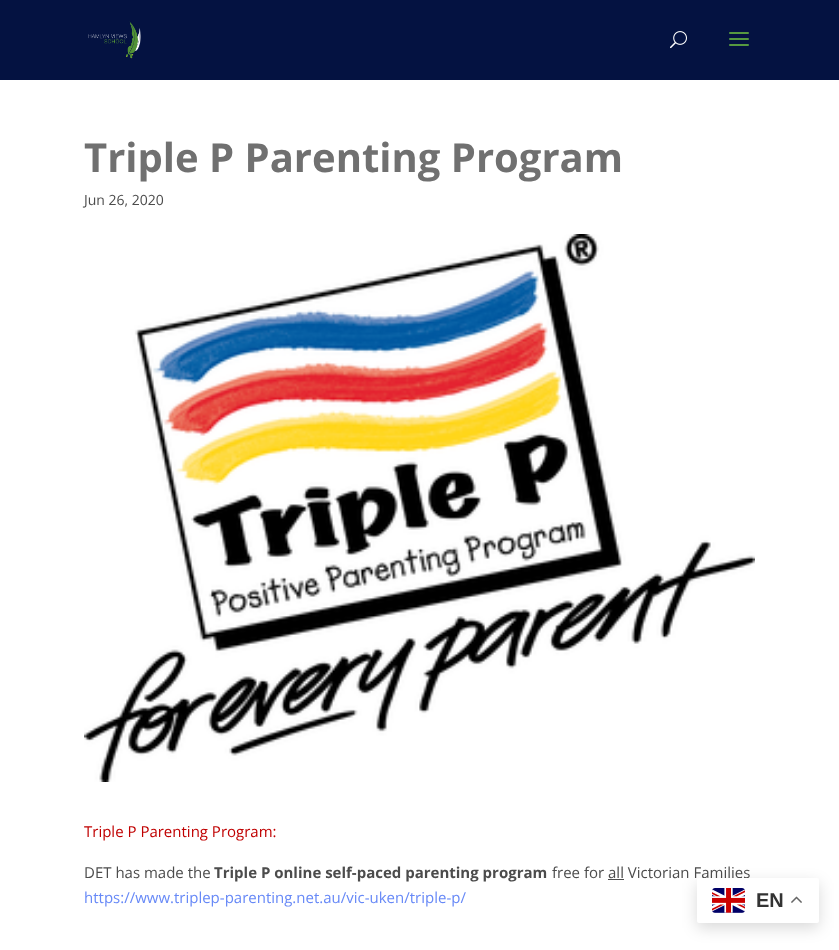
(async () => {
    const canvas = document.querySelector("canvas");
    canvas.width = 839;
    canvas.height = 950;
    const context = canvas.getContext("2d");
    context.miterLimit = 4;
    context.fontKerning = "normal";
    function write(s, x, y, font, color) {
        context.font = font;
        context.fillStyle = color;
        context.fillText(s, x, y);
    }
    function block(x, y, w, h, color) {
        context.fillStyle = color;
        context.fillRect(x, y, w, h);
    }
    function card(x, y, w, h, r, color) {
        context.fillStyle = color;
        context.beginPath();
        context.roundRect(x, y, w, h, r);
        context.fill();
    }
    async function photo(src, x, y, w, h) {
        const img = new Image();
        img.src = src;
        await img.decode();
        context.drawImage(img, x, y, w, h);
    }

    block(0, 0, 839, 950, "rgb(255, 255, 255)");
    block(0, 0, 839, 80, "rgb(4, 18, 65)");
    await photo("media/1.png", 88, 21, 53, 38);
    await photo("media/2.png", 670, 31, 17, 18);
    await photo("media/3.png", 729, 32, 20, 14);
    write("Triple P Parenting Program", 84, 172, "bold 40px Open Sans", "rgb(112, 112, 112)");
    write("Jun 26, 2020", 84, 205, "14px Open Sans", "rgb(76, 76, 76)");
    await photo("media/4.png", 84, 234, 671, 548);
    write("Triple P Parenting Program:", 84, 837, "15px Open Sans", "rgb(192, 0, 0)");
    write("DET has made the", 84, 878, "15px Open Sans", "rgb(76, 76, 76)");
    write("Triple P online self-paced parenting program", 214, 878, "bold 15px Open Sans", "rgb(76, 76, 76)");
    write("free for all Victorian Families", 552, 878, "15px Open Sans", "rgb(76, 76, 76)");
    block(608, 879, 16, 1, "rgb(76, 76, 76)");
    write("https://www.triplep-parenting.net.au/vic-uken/triple-p/", 84, 903, "15px Open Sans", "rgb(103, 137, 247)");
    context.fillStyle = "rgba(0, 0, 0, 0.15)";
    context.filter = "blur(7.5px)";
    context.beginPath();
    context.roundRect(697, 883, 122, 45, 2);
    context.fill();
    context.filter = "none";
    card(697, 878, 122, 45, 2, "rgb(255, 255, 255)");
    await photo("media/5.png", 712, 888, 33, 25);
    write("EN", 756, 907, "bold 20px Liberation Sans", "rgb(51, 51, 51)");
    await photo("media/6.png", 791, 896, 11, 7);
})();
